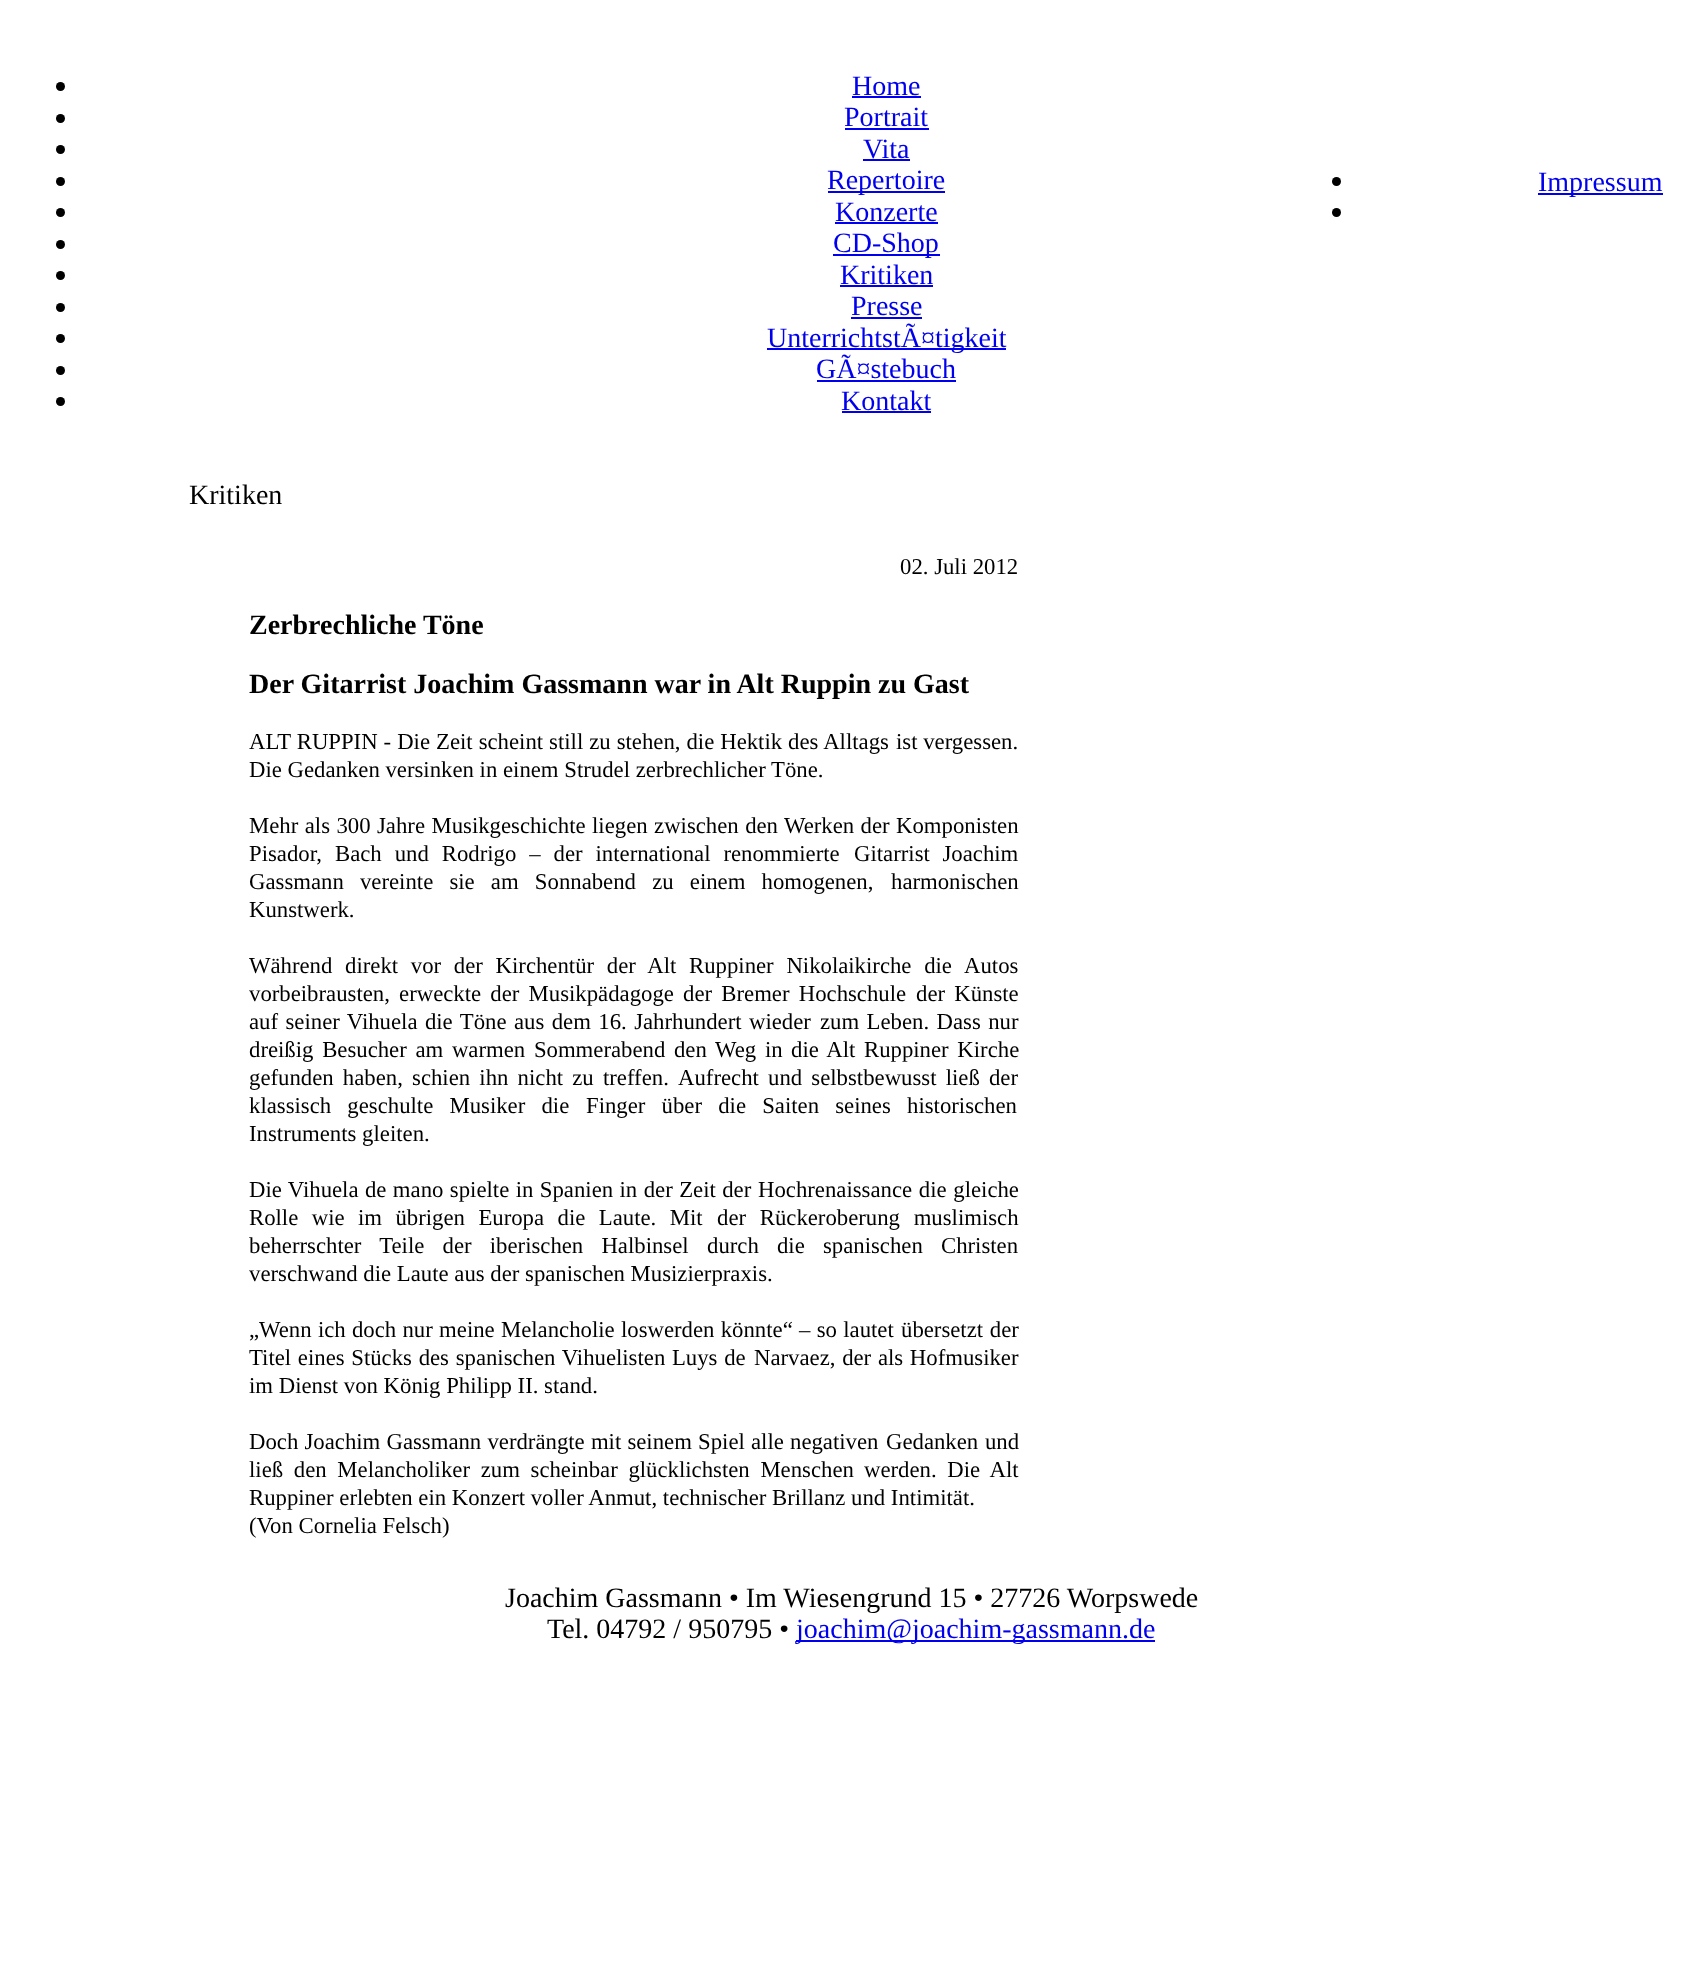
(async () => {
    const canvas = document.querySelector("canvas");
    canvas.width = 1702;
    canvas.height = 1980;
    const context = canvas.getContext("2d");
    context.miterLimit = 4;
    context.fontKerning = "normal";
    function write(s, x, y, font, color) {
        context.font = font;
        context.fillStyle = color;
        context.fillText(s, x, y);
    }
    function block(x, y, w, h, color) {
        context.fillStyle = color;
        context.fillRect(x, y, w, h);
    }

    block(0, 0, 1702, 1980, "rgb(255, 255, 255)");
    context.fillStyle = "rgb(0, 0, 0)";
    context.beginPath();
    context.arc(60.5, 86.5, 4.5, 0, Math.PI * 2);
    context.fill();
    write("Home", 852, 95, "28px Liberation Serif", "rgb(0, 0, 238)");
    block(852, 96, 69, 2, "rgb(0, 0, 238)");
    context.fillStyle = "rgb(0, 0, 0)";
    context.beginPath();
    context.arc(60.5, 118.5, 4.5, 0, Math.PI * 2);
    context.fill();
    write("Portrait", 844, 126, "28px Liberation Serif", "rgb(0, 0, 238)");
    block(845, 128, 84, 2, "rgb(0, 0, 238)");
    context.fillStyle = "rgb(0, 0, 0)";
    context.beginPath();
    context.arc(60.5, 149.5, 4.5, 0, Math.PI * 2);
    context.fill();
    write("Vita", 863, 158, "28px Liberation Serif", "rgb(0, 0, 238)");
    block(863, 159, 47, 2, "rgb(0, 0, 238)");
    context.fillStyle = "rgb(0, 0, 0)";
    context.beginPath();
    context.arc(60.5, 181.5, 4.5, 0, Math.PI * 2);
    context.fill();
    block(828, 191, 117, 2, "rgb(0, 0, 238)");
    write("Repertoire", 827, 189, "28px Liberation Serif", "rgb(0, 0, 238)");
    context.fillStyle = "rgb(0, 0, 0)";
    context.beginPath();
    context.arc(60.5, 212.5, 4.5, 0, Math.PI * 2);
    context.fill();
    write("Konzerte", 835, 221, "28px Liberation Serif", "rgb(0, 0, 238)");
    block(835, 222, 103, 2, "rgb(0, 0, 238)");
    context.fillStyle = "rgb(0, 0, 0)";
    context.beginPath();
    context.arc(60.5, 244.5, 4.5, 0, Math.PI * 2);
    context.fill();
    block(833, 254, 107, 2, "rgb(0, 0, 238)");
    write("CD-Shop", 833, 252, "28px Liberation Serif", "rgb(0, 0, 238)");
    context.fillStyle = "rgb(0, 0, 0)";
    context.beginPath();
    context.arc(60.5, 275.5, 4.5, 0, Math.PI * 2);
    context.fill();
    write("Kritiken", 840, 284, "28px Liberation Serif", "rgb(0, 0, 238)");
    block(840, 285, 93, 2, "rgb(0, 0, 238)");
    context.fillStyle = "rgb(0, 0, 0)";
    context.beginPath();
    context.arc(60.5, 307.5, 4.5, 0, Math.PI * 2);
    context.fill();
    write("Presse", 851, 315, "28px Liberation Serif", "rgb(0, 0, 238)");
    block(851, 317, 71, 2, "rgb(0, 0, 238)");
    context.fillStyle = "rgb(0, 0, 0)";
    context.beginPath();
    context.arc(60.5, 338.5, 4.5, 0, Math.PI * 2);
    context.fill();
    block(767, 348, 239, 2, "rgb(0, 0, 238)");
    write("UnterrichtstÃ¤tigkeit", 767, 347, "28px Liberation Serif", "rgb(0, 0, 238)");
    context.fillStyle = "rgb(0, 0, 0)";
    context.beginPath();
    context.arc(60.5, 370.5, 4.5, 0, Math.PI * 2);
    context.fill();
    write("GÃ¤stebuch", 816, 378, "28px Liberation Serif", "rgb(0, 0, 238)");
    block(817, 380, 139, 2, "rgb(0, 0, 238)");
    context.fillStyle = "rgb(0, 0, 0)";
    context.beginPath();
    context.arc(60.5, 401.5, 4.5, 0, Math.PI * 2);
    context.fill();
    write("Kontakt", 841, 410, "28px Liberation Serif", "rgb(0, 0, 238)");
    block(842, 411, 89, 2, "rgb(0, 0, 238)");
    context.fillStyle = "rgb(0, 0, 0)";
    context.beginPath();
    context.arc(1336.5, 181.5, 4.5, 0, Math.PI * 2);
    context.fill();
    context.beginPath();
    context.arc(1336.5, 212.5, 4.5, 0, Math.PI * 2);
    context.fill();
    block(1538, 193, 125, 2, "rgb(0, 0, 238)");
    write("Impressum", 1538, 191, "28px Liberation Serif", "rgb(0, 0, 238)");
    write("Kritiken", 189, 504, "28px Liberation Serif", "rgb(0, 0, 0)");
    write("02. Juli 2012", 900, 574, "22.75px Liberation Serif", "rgb(0, 0, 0)");
    write("Zerbrechliche Töne", 249, 634, "bold 28px Liberation Serif", "rgb(0, 0, 0)");
    write("Der Gitarrist Joachim Gassmann war in Alt Ruppin zu Gast", 249, 693, "bold 28px Liberation Serif", "rgb(0, 0, 0)");
    context.wordSpacing = "0.3px";
    write("ALT RUPPIN - Die Zeit scheint still zu stehen, die Hektik des Alltags", 249, 749, "22.75px Liberation Serif", "rgb(0, 0, 0)");
    context.wordSpacing = "0px";
    write("ist vergessen.", 896, 749, "22.75px Liberation Serif", "rgb(0, 0, 0)");
    write("Die Gedanken versinken in einem Strudel zerbrechlicher", 249, 777, "22.75px Liberation Serif", "rgb(0, 0, 0)");
    write("Töne.", 771, 777, "22.75px Liberation Serif", "rgb(0, 0, 0)");
    context.wordSpacing = "0.75px";
    write("Mehr als 300 Jahre Musikgeschichte liegen zwischen den Werken der", 249, 833, "22.75px Liberation Serif", "rgb(0, 0, 0)");
    context.wordSpacing = "0px";
    write("Komponisten", 896, 833, "22.75px Liberation Serif", "rgb(0, 0, 0)");
    context.wordSpacing = "7.25px";
    write("Pisador, Bach und Rodrigo – der international renommierte", 249, 861, "22.75px Liberation Serif", "rgb(0, 0, 0)");
    context.wordSpacing = "7px";
    write("Gitarrist Joachim", 854, 861, "22.75px Liberation Serif", "rgb(0, 0, 0)");
    context.wordSpacing = "10.5px";
    write("Gassmann vereinte sie am Sonnabend zu einem homogenen,", 249, 889, "22.75px Liberation Serif", "rgb(0, 0, 0)");
    context.wordSpacing = "0px";
    write("harmonischen", 891, 889, "22.75px Liberation Serif", "rgb(0, 0, 0)");
    write("Kunstwerk.", 249, 917, "22.75px Liberation Serif", "rgb(0, 0, 0)");
    context.wordSpacing = "7px";
    write("Während direkt vor der Kirchentür der Alt Ruppiner Nikolaikirche die", 249, 973, "22.75px Liberation Serif", "rgb(0, 0, 0)");
    context.wordSpacing = "0px";
    write("Autos", 964, 973, "22.75px Liberation Serif", "rgb(0, 0, 0)");
    context.wordSpacing = "3.5px";
    write("vorbeibrausten, erweckte der Musikpädagoge der Bremer Hochschule", 249, 1001, "22.75px Liberation Serif", "rgb(0, 0, 0)");
    write("der Künste", 916, 1001, "22.75px Liberation Serif", "rgb(0, 0, 0)");
    context.wordSpacing = "1.75px";
    write("auf seiner Vihuela die Töne aus dem 16. Jahrhundert wieder", 249, 1029, "22.75px Liberation Serif", "rgb(0, 0, 0)");
    write("zum Leben. Dass nur", 820, 1029, "22.75px Liberation Serif", "rgb(0, 0, 0)");
    context.wordSpacing = "3px";
    write("dreißig Besucher am warmen Sommerabend den Weg in", 249, 1057, "22.75px Liberation Serif", "rgb(0, 0, 0)");
    write("die Alt Ruppiner Kirche", 791, 1057, "22.75px Liberation Serif", "rgb(0, 0, 0)");
    context.wordSpacing = "3.5px";
    write("gefunden haben, schien ihn nicht zu treffen.", 249, 1085, "22.75px Liberation Serif", "rgb(0, 0, 0)");
    write("Aufrecht und selbstbewusst ließ der", 678, 1085, "22.75px Liberation Serif", "rgb(0, 0, 0)");
    context.wordSpacing = "10.5px";
    write("klassisch geschulte Musiker die", 249, 1113, "22.75px Liberation Serif", "rgb(0, 0, 0)");
    write("Finger über die Saiten seines historischen", 586, 1113, "22.75px Liberation Serif", "rgb(0, 0, 0)");
    context.wordSpacing = "0px";
    write("Instruments gleiten.", 249, 1141, "22.75px Liberation Serif", "rgb(0, 0, 0)");
    context.wordSpacing = "0.75px";
    write("Die Vihuela de mano spielte in Spanien in der Zeit der", 249, 1197, "22.75px Liberation Serif", "rgb(0, 0, 0)");
    context.wordSpacing = "1px";
    write("Hochrenaissance die gleiche", 758, 1197, "22.75px Liberation Serif", "rgb(0, 0, 0)");
    context.wordSpacing = "7.75px";
    write("Rolle wie im übrigen Europa die Laute. Mit", 249, 1225, "22.75px Liberation Serif", "rgb(0, 0, 0)");
    context.wordSpacing = "8px";
    write("der Rückeroberung muslimisch", 717, 1225, "22.75px Liberation Serif", "rgb(0, 0, 0)");
    context.wordSpacing = "12.5px";
    write("beherrschter Teile der iberischen Halbinsel", 249, 1253, "22.75px Liberation Serif", "rgb(0, 0, 0)");
    write("durch die spanischen Christen", 707, 1253, "22.75px Liberation Serif", "rgb(0, 0, 0)");
    context.wordSpacing = "0px";
    write("verschwand die Laute aus der spanischen Musizierpraxis.", 249, 1281, "22.75px Liberation Serif", "rgb(0, 0, 0)");
    context.wordSpacing = "0.6px";
    write("„Wenn ich doch nur meine Melancholie loswerden könnte“ – so lautet", 249, 1337, "22.75px Liberation Serif", "rgb(0, 0, 0)");
    context.wordSpacing = "1px";
    write("übersetzt der", 901, 1337, "22.75px Liberation Serif", "rgb(0, 0, 0)");
    write("Titel eines Stücks des spanischen Vihuelisten Luys de", 249, 1365, "22.75px Liberation Serif", "rgb(0, 0, 0)");
    write("Narvaez, der als Hofmusiker", 754, 1365, "22.75px Liberation Serif", "rgb(0, 0, 0)");
    context.wordSpacing = "0px";
    write("im Dienst von König Philipp II. stand.", 249, 1393, "22.75px Liberation Serif", "rgb(0, 0, 0)");
    context.wordSpacing = "0.5px";
    write("Doch Joachim Gassmann verdrängte mit seinem Spiel alle negativen", 249, 1449, "22.75px Liberation Serif", "rgb(0, 0, 0)");
    context.wordSpacing = "1px";
    write("Gedanken und", 886, 1449, "22.75px Liberation Serif", "rgb(0, 0, 0)");
    context.wordSpacing = "5px";
    write("ließ den Melancholiker zum scheinbar glücklichsten Menschen", 249, 1477, "22.75px Liberation Serif", "rgb(0, 0, 0)");
    write("werden. Die Alt", 864, 1477, "22.75px Liberation Serif", "rgb(0, 0, 0)");
    context.wordSpacing = "0px";
    write("Ruppiner erlebten ein Konzert voller Anmut, technischer Brillanz und Intimität.", 249, 1505, "22.75px Liberation Serif", "rgb(0, 0, 0)");
    write("(Von Cornelia Felsch)", 249, 1533, "22.75px Liberation Serif", "rgb(0, 0, 0)");
    write("Joachim Gassmann • Im Wiesengrund 15 • 27726 Worpswede", 505, 1607, "28px Liberation Serif", "rgb(0, 0, 0)");
    write("Tel. 04792 / 950795 •", 547, 1638, "28px Liberation Serif", "rgb(0, 0, 0)");
    block(796, 1640, 359, 2, "rgb(0, 0, 238)");
    write("joachim@joachim-gassmann.de", 796, 1638, "28px Liberation Serif", "rgb(0, 0, 238)");
})();
